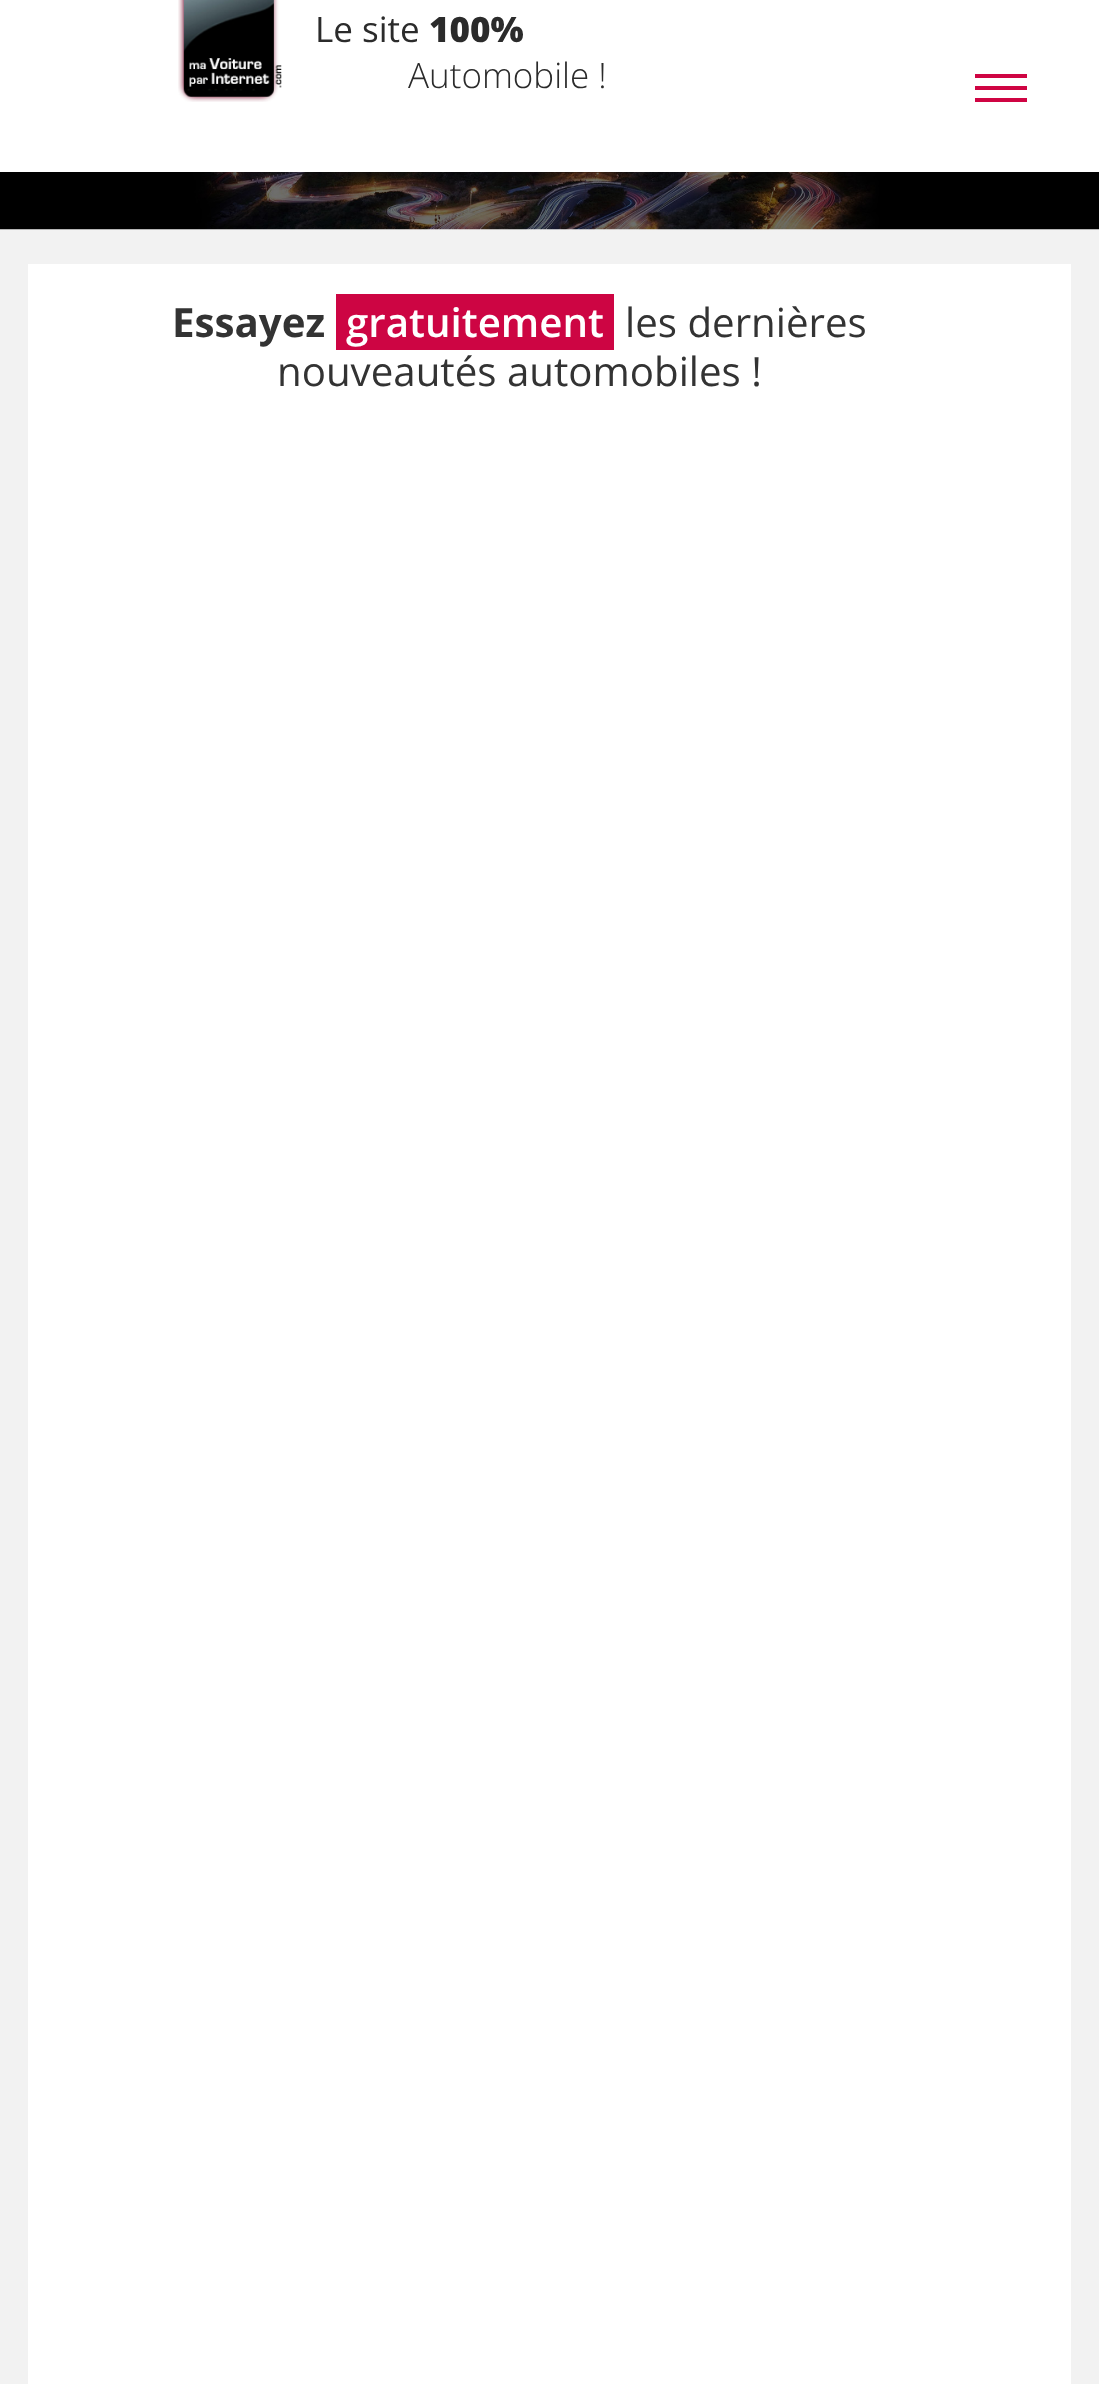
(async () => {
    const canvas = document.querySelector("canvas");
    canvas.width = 1099;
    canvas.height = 2384;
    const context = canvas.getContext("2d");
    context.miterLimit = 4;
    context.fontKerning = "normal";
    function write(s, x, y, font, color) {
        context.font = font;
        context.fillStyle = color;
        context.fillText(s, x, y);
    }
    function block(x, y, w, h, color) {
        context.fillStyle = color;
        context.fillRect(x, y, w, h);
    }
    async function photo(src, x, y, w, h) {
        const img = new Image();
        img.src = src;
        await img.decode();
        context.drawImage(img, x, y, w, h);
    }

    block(0, 0, 1099, 2384, "rgb(242, 242, 242)");
    block(0, 0, 1099, 172, "rgb(255, 255, 255)");
    await photo("media/1.png", 178, 0, 104, 102);
    write("Le site", 315, 42, "35px Open Sans", "rgb(43, 43, 43)");
    write("100%", 429, 42, "800 35px Open Sans", "rgb(43, 43, 43)");
    write("Automobile !", 408, 88, "300 35px Open Sans", "rgb(43, 43, 43)");
    block(975, 74, 52, 4, "rgb(207, 4, 67)");
    block(975, 86, 52, 4, "rgb(207, 4, 67)");
    block(975, 98, 52, 4, "rgb(207, 4, 67)");
    await photo("media/2.png", 0, 172, 1099, 58);
    block(28, 264, 1043, 2120, "rgb(255, 255, 255)");
    write("Essayez", 172, 337, "bold 40.25px Open Sans", "rgb(51, 51, 51)");
    block(336, 294, 278, 56, "rgb(205, 5, 67)");
    write("gratuitement", 346, 337, "600 40.25px Open Sans", "rgb(255, 255, 255)");
    write("les dernières", 625, 337, "40.25px Open Sans", "rgb(51, 51, 51)");
    write("nouveautés automobiles !", 277, 386, "40.25px Open Sans", "rgb(51, 51, 51)");
})();
